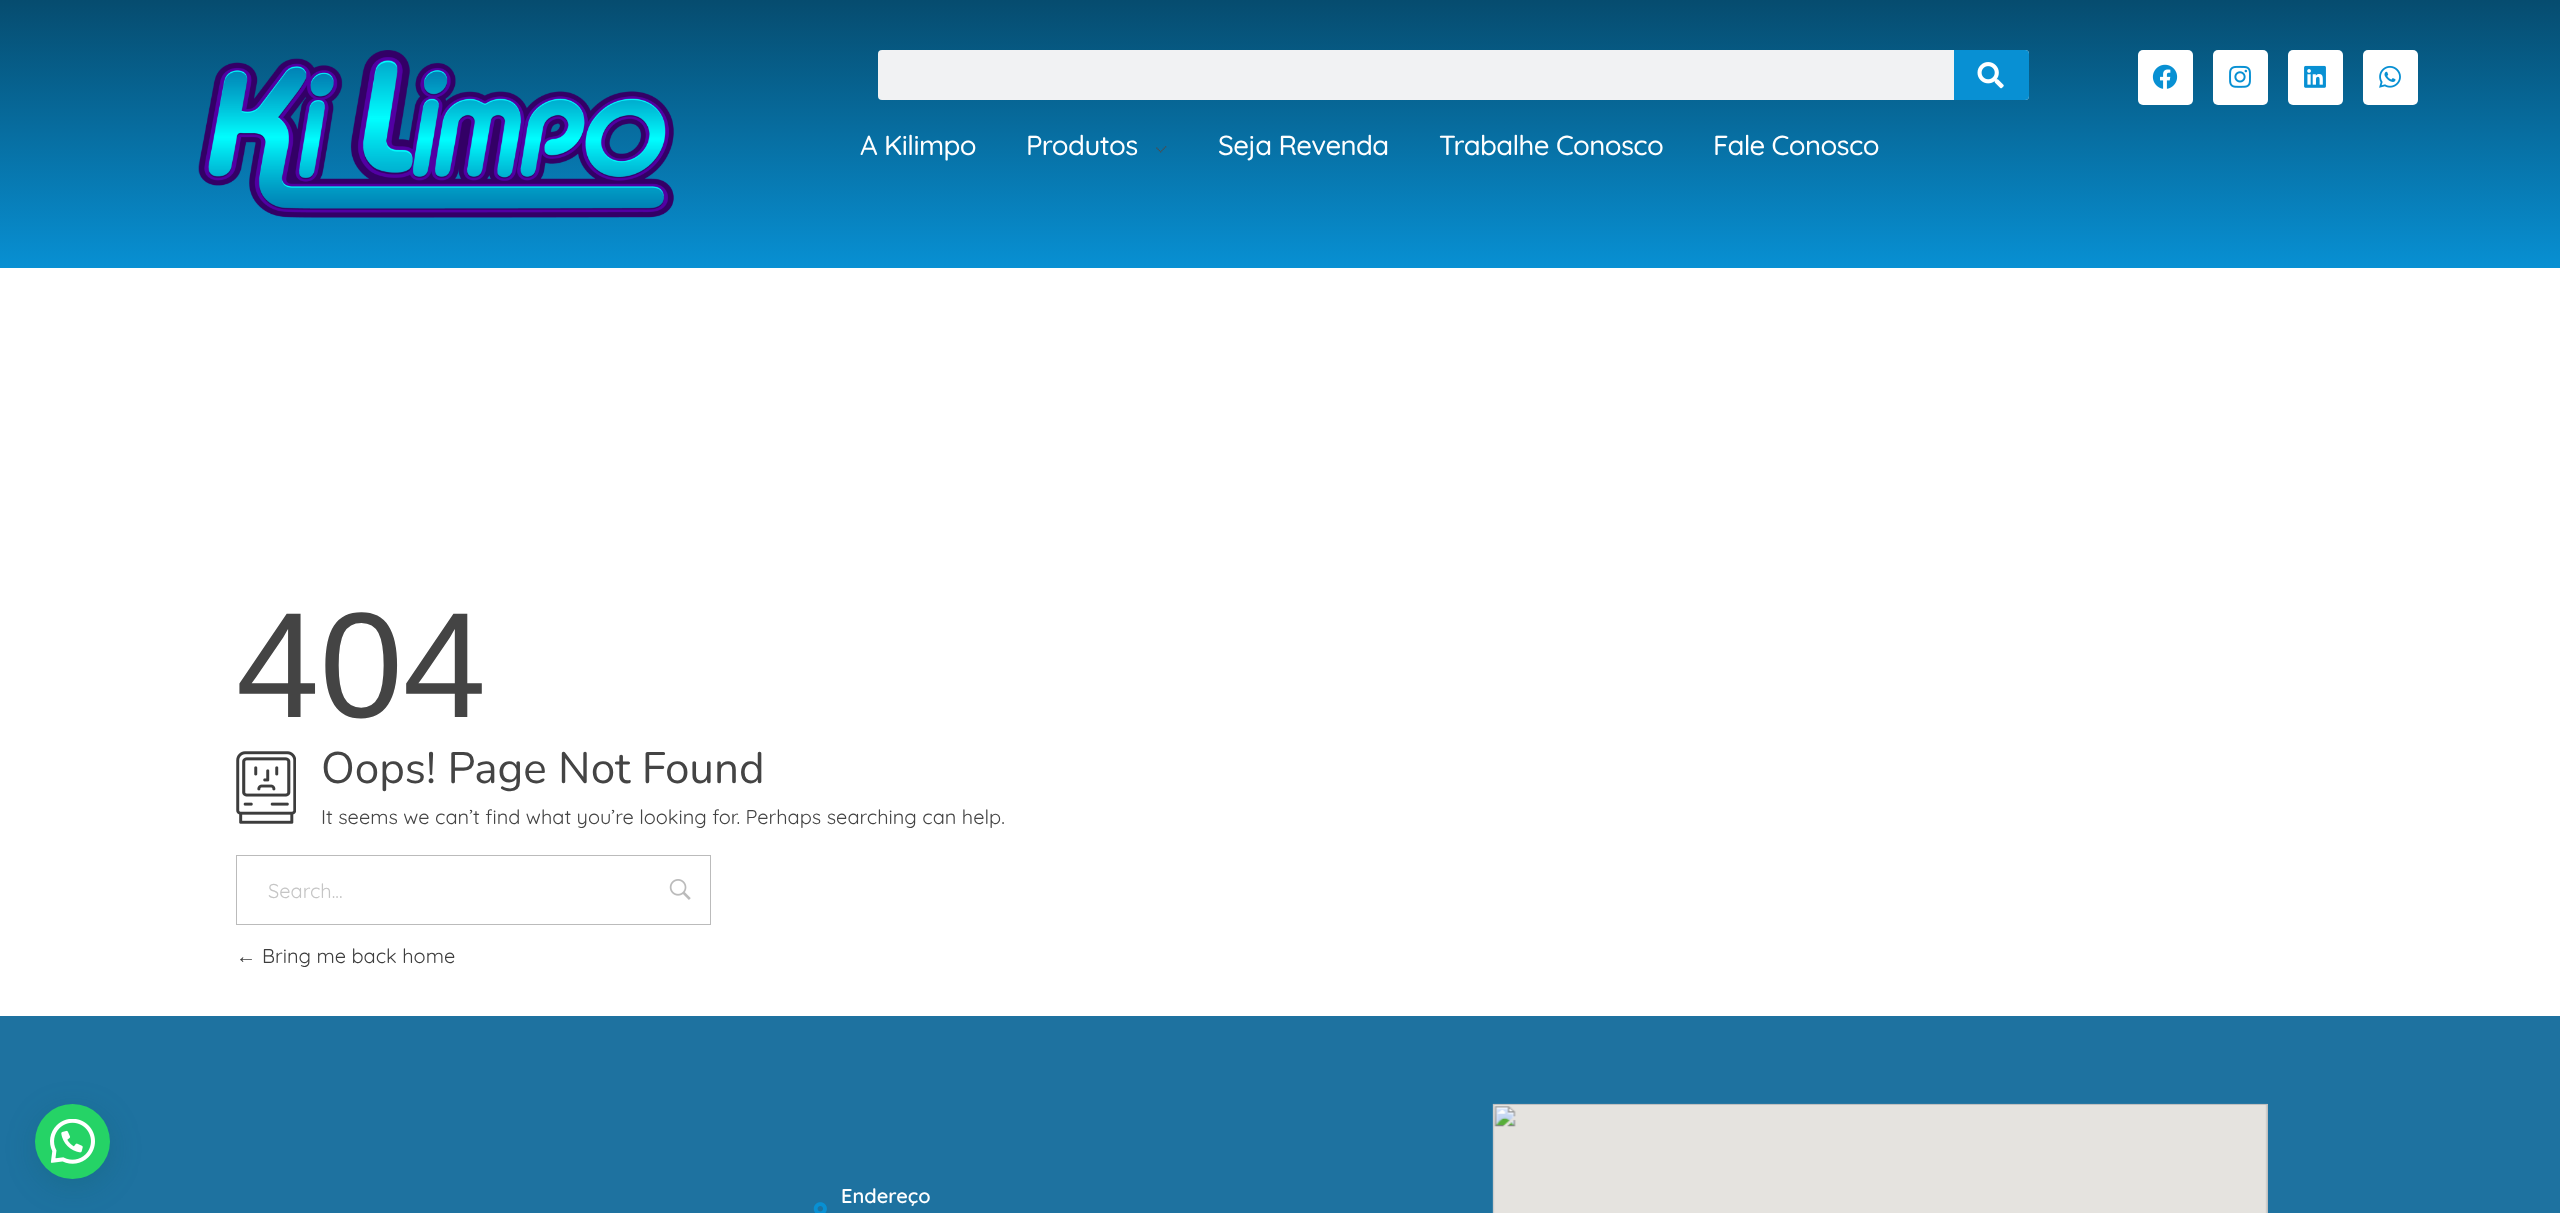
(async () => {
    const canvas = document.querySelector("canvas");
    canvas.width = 2560;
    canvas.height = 1213;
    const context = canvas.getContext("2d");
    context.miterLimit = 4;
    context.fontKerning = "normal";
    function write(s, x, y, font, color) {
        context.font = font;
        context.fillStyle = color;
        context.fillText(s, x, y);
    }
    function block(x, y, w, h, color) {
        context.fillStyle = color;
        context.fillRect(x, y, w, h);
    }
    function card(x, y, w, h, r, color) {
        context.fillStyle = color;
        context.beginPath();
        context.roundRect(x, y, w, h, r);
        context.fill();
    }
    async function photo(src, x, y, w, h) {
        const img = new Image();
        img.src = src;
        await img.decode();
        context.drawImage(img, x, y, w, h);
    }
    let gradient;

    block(0, 0, 2560, 1213, "rgb(255, 255, 255)");
    block(0, 1016, 2560, 197, "rgb(30, 114, 160)");
    context.fillStyle = "rgba(7, 94, 84, 0.24)";
    context.filter = "blur(15px)";
    context.beginPath();
    context.roundRect(36, 1111, 75, 75, 37.5);
    context.fill();
    context.filter = "none";
    context.fillStyle = "rgb(37, 211, 102)";
    context.beginPath();
    context.arc(72.5, 1141.5, 37.5, 0, Math.PI * 2);
    context.fill();
    await photo("media/1.png", 50, 1119, 45, 45);
    gradient = context.createLinearGradient(1280, 0, 1280, 268);
    gradient.addColorStop(0, "rgb(6, 76, 111)");
    gradient.addColorStop(1, "rgb(8, 144, 211)");
    context.fillStyle = gradient;
    context.fillRect(0, 0, 2560, 268);
    await photo("media/2.png", 198, 50, 476, 168);
    card(878, 50, 1151, 50, 4, "rgb(241, 242, 243)");
    context.fillStyle = "rgb(8, 144, 211)";
    context.beginPath();
    context.roundRect(1954, 50, 75, 50, [0, 4, 4, 0]);
    context.fill();
    await photo("media/3.png", 1977, 62, 27, 27);
    card(2138, 50, 55, 55, 5, "rgb(255, 255, 255)");
    await photo("media/4.png", 2152, 64, 26, 25);
    card(2213, 50, 55, 55, 5, "rgb(255, 255, 255)");
    await photo("media/5.png", 2229, 65, 22, 23);
    card(2288, 50, 55, 55, 5, "rgb(255, 255, 255)");
    await photo("media/6.png", 2304, 65, 22, 23);
    card(2363, 50, 55, 55, 5, "rgb(255, 255, 255)");
    await photo("media/7.png", 2379, 65, 22, 23);
    context.letterSpacing = "-0.6px";
    write("A Kilimpo", 860, 155, "500 27.5px Quicksand", "rgb(255, 255, 255)");
    write("Produtos", 1026, 155, "500 27.5px Quicksand", "rgb(255, 255, 255)");
    await photo("media/8.png", 1156, 146, 11, 7);
    write("Seja Revenda", 1218, 155, "500 27.5px Quicksand", "rgb(255, 255, 255)");
    write("Trabalhe Conosco", 1439, 155, "500 27.5px Quicksand", "rgb(255, 255, 255)");
    write("Fale Conosco", 1713, 155, "500 27.5px Quicksand", "rgb(255, 255, 255)");
    context.letterSpacing = "0px";
    write("404", 236, 717, "150px Liberation Sans", "rgb(68, 68, 68)");
    await photo("media/9.png", 236, 751, 60, 73);
    write("Oops! Page Not Found", 321, 783, "44px Nunito", "rgb(68, 68, 68)");
    write("It seems we can’t find what you’re looking for. Perhaps searching can help.", 321, 824, "20px Quicksand", "rgb(68, 68, 68)");
    context.strokeStyle = "rgb(187, 187, 187)";
    context.strokeRect(236.5, 855.5, 474, 69);
    write("Search...", 268, 898, "20px Quicksand", "rgb(197, 197, 197)");
    await photo("media/10.png", 669, 879, 22, 21);
    write("←", 236, 963, "20px Liberation Sans", "rgb(61, 61, 61)");
    write("Bring me back home", 262, 963, "20px Quicksand", "rgb(61, 61, 61)");
    write("Endereço", 841, 1203, "600 20px Quicksand", "rgb(255, 255, 255)");
    await photo("media/11.png", 813, 1202, 14, 11);
    await photo("media/12.png", 1492, 1103, 776, 110);
})();
